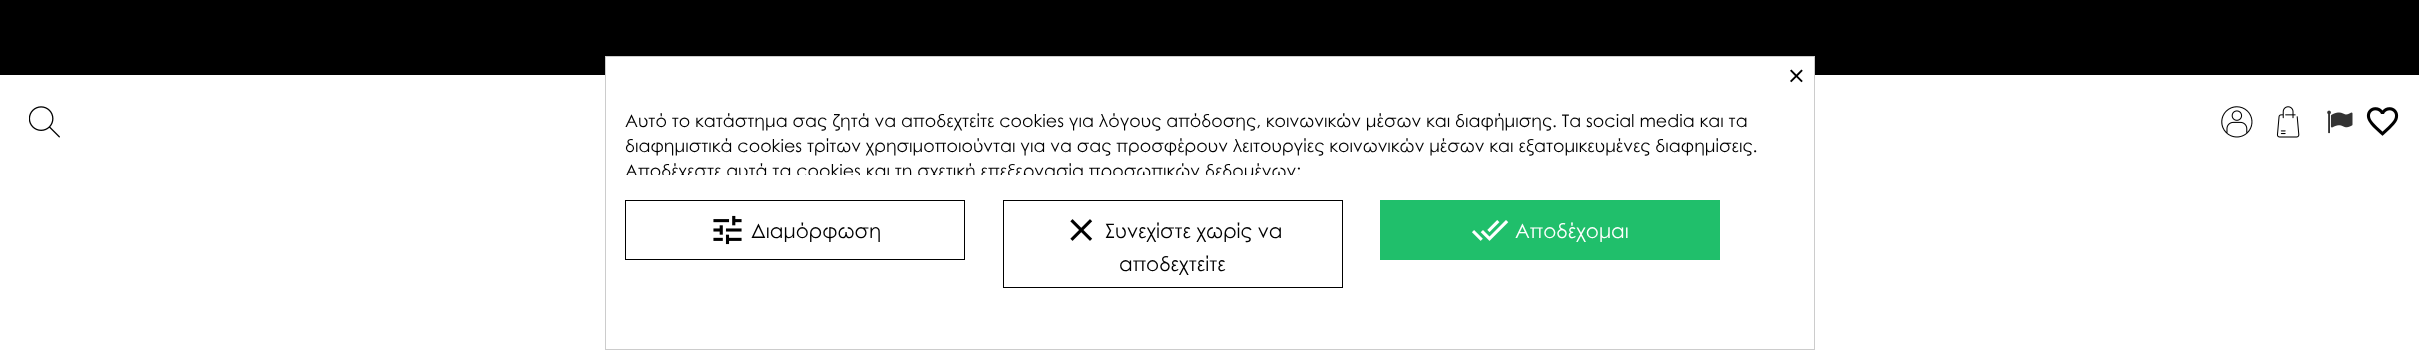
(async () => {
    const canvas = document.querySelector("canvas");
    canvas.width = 2419;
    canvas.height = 350;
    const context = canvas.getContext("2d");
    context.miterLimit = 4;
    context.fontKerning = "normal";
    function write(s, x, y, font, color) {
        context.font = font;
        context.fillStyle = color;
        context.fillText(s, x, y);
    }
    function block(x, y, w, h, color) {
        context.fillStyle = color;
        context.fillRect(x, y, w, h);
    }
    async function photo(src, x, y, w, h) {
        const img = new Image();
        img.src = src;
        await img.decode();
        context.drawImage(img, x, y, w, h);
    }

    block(0, 0, 2419, 350, "rgb(255, 255, 255)");
    block(0, 0, 2419, 75, "rgb(0, 0, 0)");
    await photo("media/1.png", 29, 106, 31, 32);
    await photo("media/2.png", 2221, 106, 32, 32);
    await photo("media/3.png", 2276, 106, 24, 32);
    await photo("media/4.png", 2327, 110, 26, 24);
    await photo("media/5.png", 2366, 107, 33, 29);
    block(606, 57, 1208, 18, "rgb(255, 255, 255)");
    context.strokeStyle = "rgb(204, 204, 204)";
    context.strokeRect(605.5, 56.5, 1209, 293);
    write("×", 1787, 87, "31px Century Gothic", "rgb(0, 0, 0)");
    write("Αυτό το κατάστημα σας ζητά να αποδεχτείτε cookies για λόγους απόδοσης, κοινωνικών μέσων και διαφήμισης. Τα social media και τα", 625, 127, "17.5px Century Gothic", "rgb(0, 0, 0)");
    write("διαφημιστικά cookies τρίτων χρησιμοποιούνται για να σας προσφέρουν λειτουργίες κοινωνικών μέσων και εξατομικευμένες διαφημίσεις.", 625, 152, "17.5px Century Gothic", "rgb(0, 0, 0)");
    context.save();
    context.beginPath();
    context.rect(625, 108, 1133, 67);
    context.clip();
    write("Αποδέχεστε αυτά τα cookies και τη σχετική επεξεργασία προσωπικών δεδομένων;", 625, 177, "17.5px Century Gothic", "rgb(0, 0, 0)");
    context.restore();
    context.strokeStyle = "rgb(0, 0, 0)";
    context.strokeRect(625.5, 200.5, 339, 59);
    await photo("media/6.png", 713, 215, 29, 30);
    write("Διαμόρφωση", 751, 238, "20px Century Gothic", "rgb(0, 0, 0)");
    context.strokeRect(1003.5, 200.5, 339, 87);
    await photo("media/7.png", 1070, 219, 23, 22);
    write("Συνεχίστε χωρίς να", 1105, 238, "20px Century Gothic", "rgb(0, 0, 0)");
    write("αποδεχτείτε", 1119, 271, "20px Century Gothic", "rgb(0, 0, 0)");
    block(1380, 200, 340, 60, "rgb(32, 191, 107)");
    await photo("media/8.png", 1472, 220, 37, 21);
    write("Αποδέχομαι", 1515, 238, "20px Century Gothic", "rgb(255, 255, 255)");
})();
